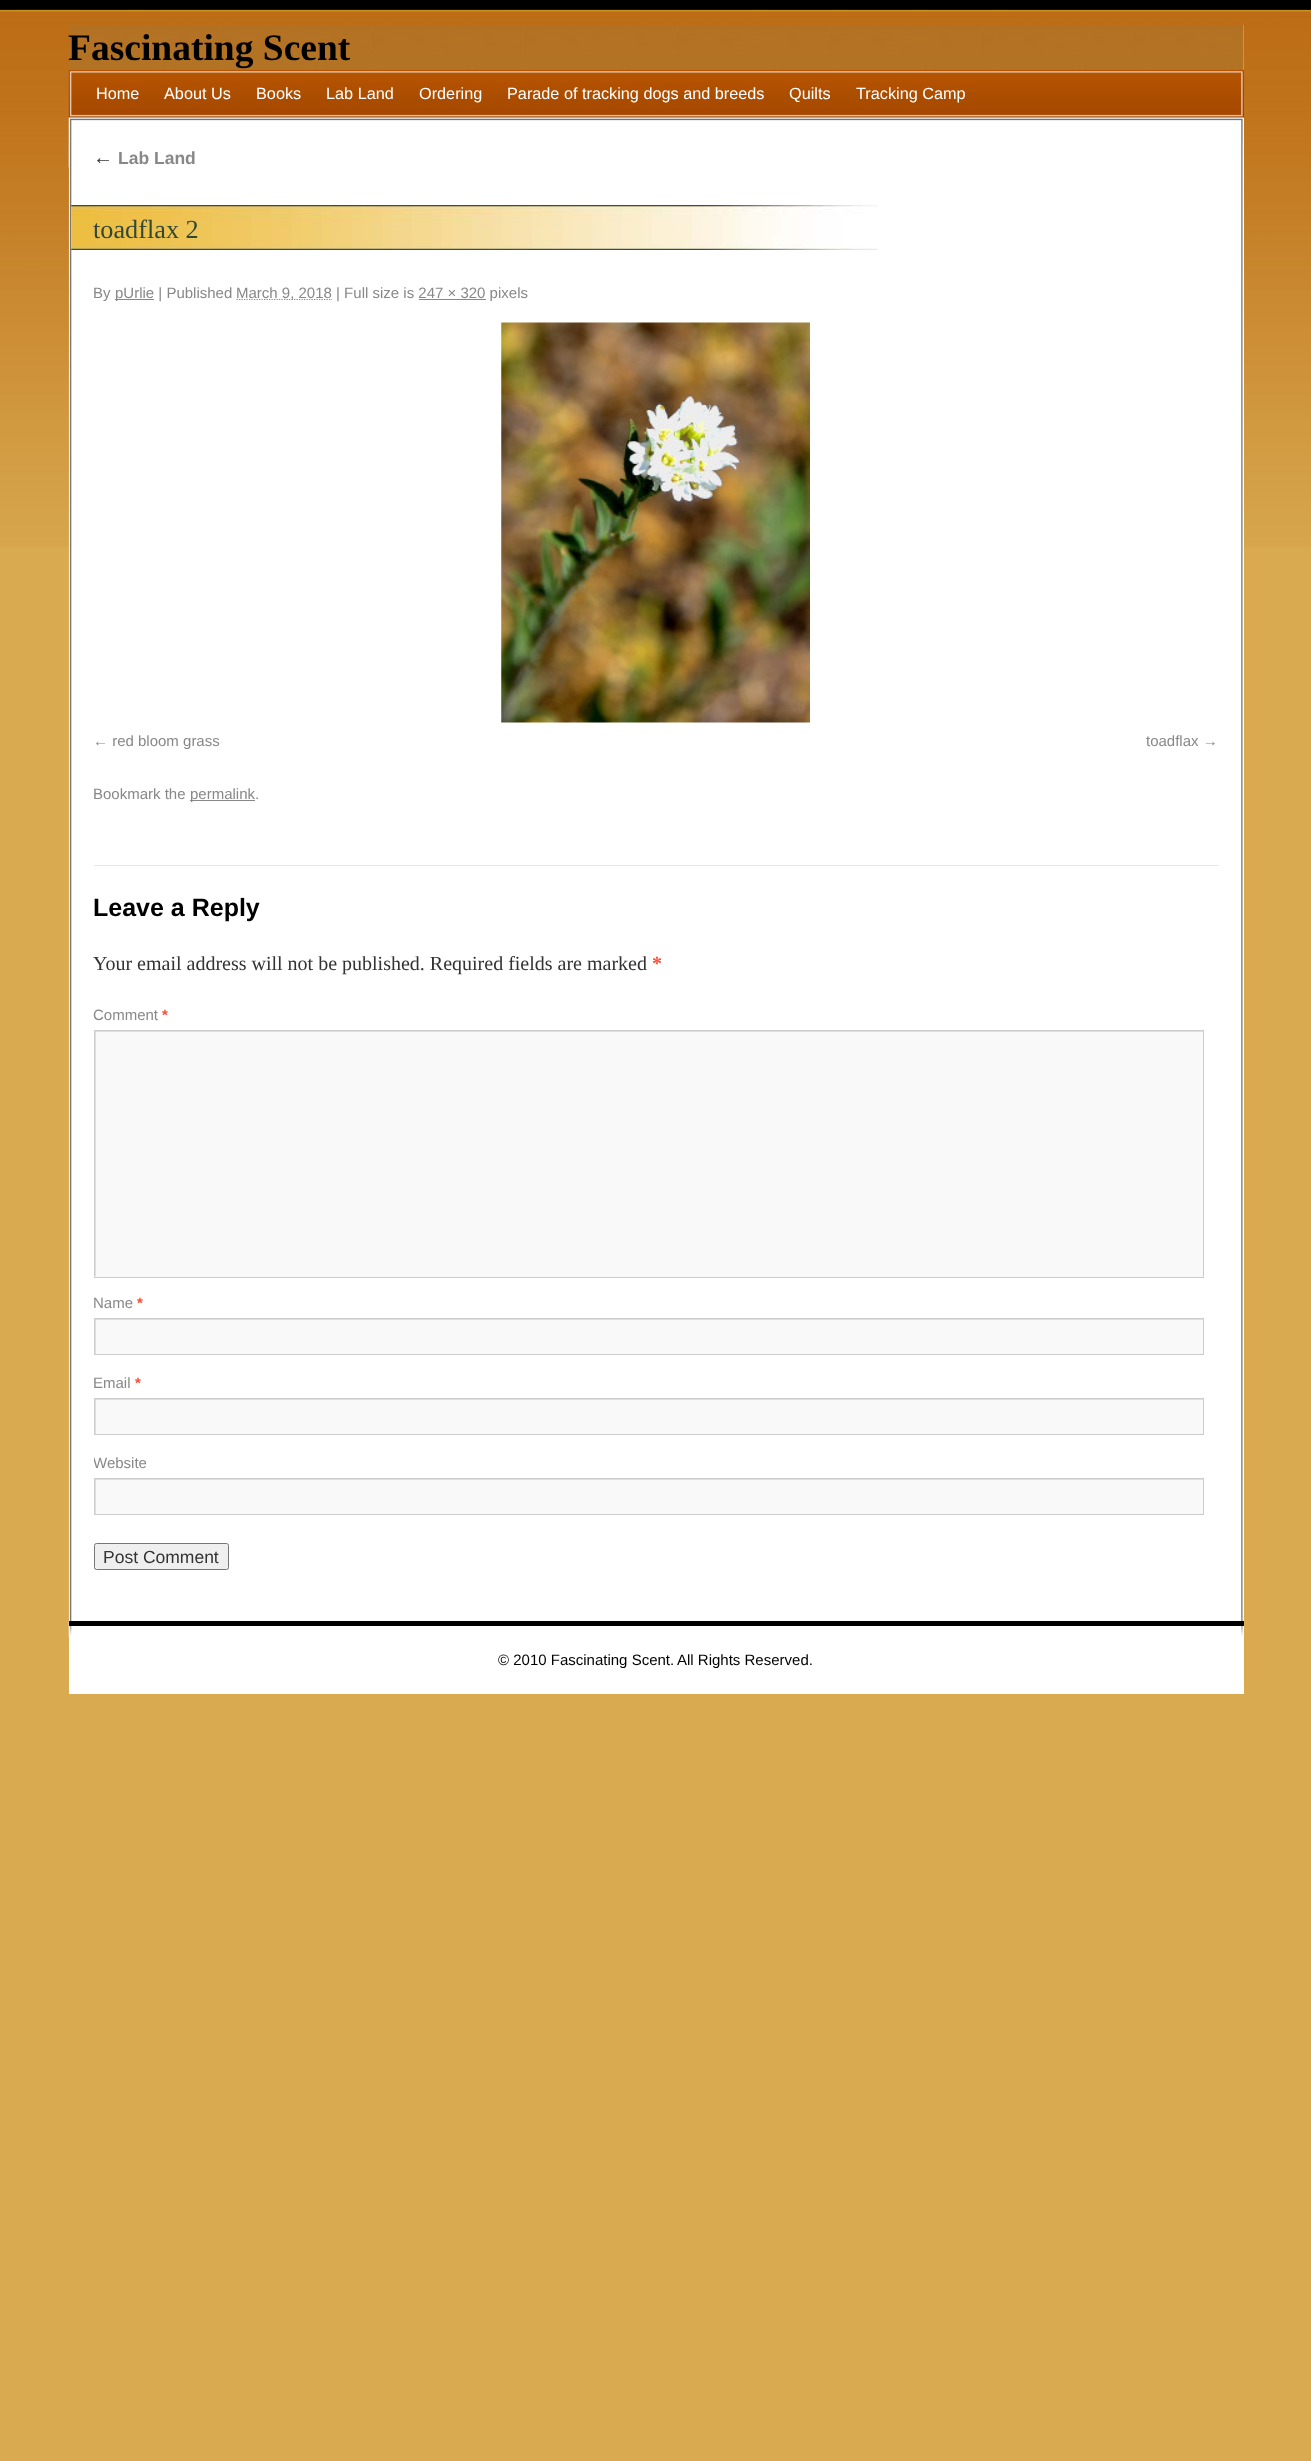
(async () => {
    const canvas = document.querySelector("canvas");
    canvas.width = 1311;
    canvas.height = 2461;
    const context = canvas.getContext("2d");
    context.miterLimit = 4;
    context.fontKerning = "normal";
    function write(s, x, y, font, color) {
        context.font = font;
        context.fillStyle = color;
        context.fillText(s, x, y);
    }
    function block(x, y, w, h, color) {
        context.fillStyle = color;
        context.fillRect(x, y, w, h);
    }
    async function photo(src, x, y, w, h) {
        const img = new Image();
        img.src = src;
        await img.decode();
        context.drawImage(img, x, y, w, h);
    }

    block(0, 0, 1311, 2461, "rgb(217, 170, 80)");
    await photo("media/1.png", 0, 0, 1311, 547);
    block(69, 25, 1175, 1669, "rgb(255, 255, 255)");
    await photo("media/2.png", 69, 25, 1175, 45);
    write("Fascinating Scent", 68, 60, "bold 37.5px Liberation Serif", "rgb(0, 0, 0)");
    block(69, 70, 1175, 48, "rgb(153, 51, 0)");
    await photo("media/3.png", 68, 70, 1176, 48);
    write("Home", 96, 99, "16.25px Liberation Sans", "rgb(255, 255, 255)");
    write("About Us", 164, 99, "16.25px Liberation Sans", "rgb(255, 255, 255)");
    write("Books", 256, 99, "16.25px Liberation Sans", "rgb(255, 255, 255)");
    write("Lab Land", 326, 99, "16.25px Liberation Sans", "rgb(255, 255, 255)");
    write("Ordering", 419, 99, "16.25px Liberation Sans", "rgb(255, 255, 255)");
    write("Parade of tracking dogs and breeds", 507, 99, "16.25px Liberation Sans", "rgb(255, 255, 255)");
    write("Quilts", 789, 99, "16.25px Liberation Sans", "rgb(255, 255, 255)");
    write("Tracking Camp", 856, 99, "16.25px Liberation Sans", "rgb(255, 255, 255)");
    await photo("media/4.png", 68, 117, 1176, 51);
    await photo("media/8.png", 68, 1621, 1175, 17);
    await photo("media/5.png", 68, 142, 1175, 1484);
    write("←", 93, 164, "italic 20px Liberation Serif", "rgb(51, 51, 51)");
    write("Lab Land", 118, 164, "bold 17.5px Liberation Sans", "rgb(136, 136, 136)");
    await photo("media/6.png", 71, 205, 807, 45);
    write("toadflax 2", 93, 238, "26.25px Liberation Serif", "rgb(50, 72, 55)");
    write("By", 93, 298, "15px Liberation Sans", "rgb(136, 136, 136)");
    block(115, 299, 39, 1, "rgb(136, 136, 136)");
    write("pUrlie | Published", 115, 298, "15px Liberation Sans", "rgb(136, 136, 136)");
    context.beginPath();
    context.moveTo(236.5, 299.5);
    context.lineTo(332, 299.5);
    context.strokeStyle = "rgb(136, 136, 136)";
    context.lineWidth = 1.2;
    context.setLineDash([1.25, 1.25]);
    context.stroke();
    write("March 9, 2018 | Full size is 247 × 320 pixels", 236, 298, "15px Liberation Sans", "rgb(136, 136, 136)");
    block(419, 299, 67, 1, "rgb(136, 136, 136)");
    await photo("media/7.png", 501, 322, 309, 401);
    write("← red bloom grass", 93, 746, "15px Liberation Sans", "rgb(136, 136, 136)");
    write("toadflax →", 1146, 746, "15px Liberation Sans", "rgb(136, 136, 136)");
    write("Bookmark the", 93, 799, "15px Liberation Sans", "rgb(136, 136, 136)");
    block(190, 800, 65, 1, "rgb(136, 136, 136)");
    write("permalink.", 190, 799, "15px Liberation Sans", "rgb(136, 136, 136)");
    block(94, 865, 1125, 1, "rgb(231, 231, 231)");
    write("Leave a Reply", 93, 916, "bold 25px Liberation Sans", "rgb(0, 0, 0)");
    write("Your email address will not be published. Required fields are marked", 93, 970, "20px Liberation Serif", "rgb(51, 51, 51)");
    write("*", 652, 970, "bold 20px Liberation Serif", "rgb(255, 75, 51)");
    write("Comment", 93, 1020, "15px Liberation Sans", "rgb(136, 136, 136)");
    write("*", 162, 1020, "bold 15px Liberation Sans", "rgb(255, 75, 51)");
    block(95, 1032, 1108, 245, "rgb(249, 249, 249)");
    context.save();
    context.beginPath();
    context.rect(95, 1031, 1108, 245);
    context.clip();
    context.fillStyle = "rgb(224, 224, 224)";
    context.beginPath();
    context.moveTo(-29, 908);
    context.lineTo(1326, 908);
    context.lineTo(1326, 1400);
    context.lineTo(-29, 1400);
    context.closePath();
    context.moveTo(96, 1032);
    context.lineTo(1204, 1032);
    context.lineTo(1204, 1278);
    context.lineTo(96, 1278);
    context.closePath();
    context.fill("evenodd");
    context.restore();
    context.strokeStyle = "rgb(204, 204, 204)";
    context.lineWidth = 1;
    context.setLineDash([]);
    context.strokeRect(94.5, 1030.5, 1109, 247);
    write("Name", 93, 1308, "15px Liberation Sans", "rgb(136, 136, 136)");
    write("*", 137, 1308, "bold 15px Liberation Sans", "rgb(255, 75, 51)");
    block(96, 1320, 1107, 34, "rgb(249, 249, 249)");
    context.save();
    context.beginPath();
    context.rect(95, 1319, 1108, 35);
    context.clip();
    context.fillStyle = "rgb(224, 224, 224)";
    context.beginPath();
    context.moveTo(-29, 1195);
    context.lineTo(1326, 1195);
    context.lineTo(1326, 1478);
    context.lineTo(-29, 1478);
    context.closePath();
    context.moveTo(96, 1320);
    context.lineTo(1204, 1320);
    context.lineTo(1204, 1355);
    context.lineTo(96, 1355);
    context.closePath();
    context.fill("evenodd");
    context.restore();
    context.strokeRect(94.5, 1318.5, 1109, 36);
    write("Email", 93, 1388, "15px Liberation Sans", "rgb(136, 136, 136)");
    write("*", 135, 1388, "bold 15px Liberation Sans", "rgb(255, 75, 51)");
    block(96, 1400, 1107, 34, "rgb(249, 249, 249)");
    context.save();
    context.beginPath();
    context.rect(95, 1399, 1108, 35);
    context.clip();
    context.fillStyle = "rgb(224, 224, 224)";
    context.beginPath();
    context.moveTo(-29, 1275);
    context.lineTo(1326, 1275);
    context.lineTo(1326, 1558);
    context.lineTo(-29, 1558);
    context.closePath();
    context.moveTo(96, 1400);
    context.lineTo(1204, 1400);
    context.lineTo(1204, 1435);
    context.lineTo(96, 1435);
    context.closePath();
    context.fill("evenodd");
    context.restore();
    context.strokeRect(94.5, 1398.5, 1109, 36);
    context.save();
    context.beginPath();
    context.rect(94, 866, 1125, 730);
    context.clip();
    write("Website", 93, 1468, "15px Liberation Sans", "rgb(136, 136, 136)");
    context.restore();
    block(96, 1480, 1107, 34, "rgb(249, 249, 249)");
    context.save();
    context.beginPath();
    context.rect(95, 1479, 1108, 35);
    context.clip();
    context.fillStyle = "rgb(224, 224, 224)";
    context.beginPath();
    context.moveTo(-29, 1355);
    context.lineTo(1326, 1355);
    context.lineTo(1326, 1638);
    context.lineTo(-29, 1638);
    context.closePath();
    context.moveTo(96, 1480);
    context.lineTo(1204, 1480);
    context.lineTo(1204, 1515);
    context.lineTo(96, 1515);
    context.closePath();
    context.fill("evenodd");
    context.restore();
    context.strokeRect(94.5, 1478.5, 1109, 36);
    context.fillStyle = "rgb(239, 239, 239)";
    context.beginPath();
    context.roundRect(94.5, 1543.5, 134, 26, 2);
    context.fill();
    context.strokeStyle = "rgb(118, 118, 118)";
    context.stroke();
    write("Post Comment", 103, 1563, "17.5px Liberation Sans", "rgb(51, 51, 51)");
    block(69, 1621, 1175, 5, "rgb(0, 0, 0)");
    write("© 2010 Fascinating Scent.", 498, 1665, "15px Liberation Sans", "rgb(0, 0, 0)");
    write("All Rights Reserved.", 677, 1665, "15px Liberation Sans", "rgb(0, 0, 0)");
})();
